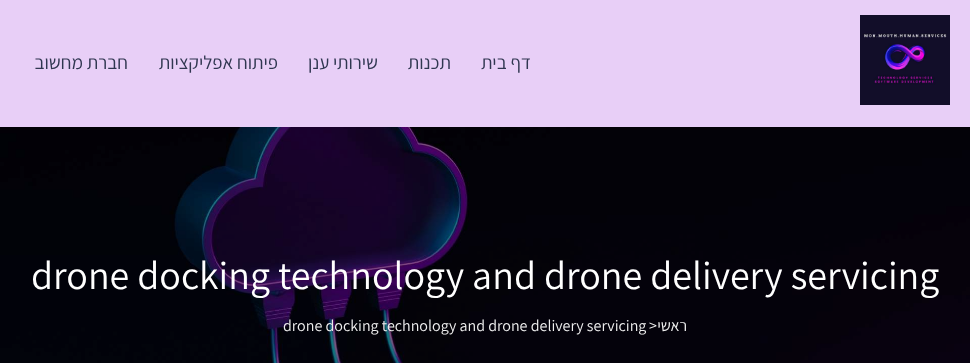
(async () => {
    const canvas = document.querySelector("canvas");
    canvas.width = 970;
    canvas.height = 363;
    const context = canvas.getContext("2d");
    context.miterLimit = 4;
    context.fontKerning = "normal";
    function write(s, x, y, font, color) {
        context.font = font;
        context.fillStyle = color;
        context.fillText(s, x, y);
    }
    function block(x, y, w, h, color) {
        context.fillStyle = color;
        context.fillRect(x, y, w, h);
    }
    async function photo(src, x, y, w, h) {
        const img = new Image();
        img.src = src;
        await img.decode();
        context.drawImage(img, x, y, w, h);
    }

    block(0, 0, 970, 363, "rgb(232, 207, 247)");
    context.direction = "rtl";
    write("חברת מחשוב", 128, 69, "19px Assistant", "rgb(48, 55, 81)");
    write("פיתוח אפליקציות", 278, 69, "19px Assistant", "rgb(48, 55, 81)");
    write("שירותי ענן", 378, 69, "19px Assistant", "rgb(48, 55, 81)");
    write("תכנות", 451, 69, "19px Assistant", "rgb(48, 55, 81)");
    write("דף בית", 531, 69, "19px Assistant", "rgb(48, 55, 81)");
    await photo("media/1.png", 860, 15, 90, 90);
    await photo("media/2.png", 0, 127, 970, 236);
    context.direction = "ltr";
    write("drone docking technology and drone delivery servicing", 31, 289, "40px Assistant", "rgb(255, 255, 255)");
    write("drone docking technology and drone delivery servicing", 283, 331, "16px Assistant", "rgb(239, 239, 239)");
    write(">", 649, 331, "16px Assistant", "rgb(239, 239, 239)");
    context.direction = "rtl";
    write("ראשי", 687, 331, "16px Assistant", "rgb(239, 239, 239)");
})();
